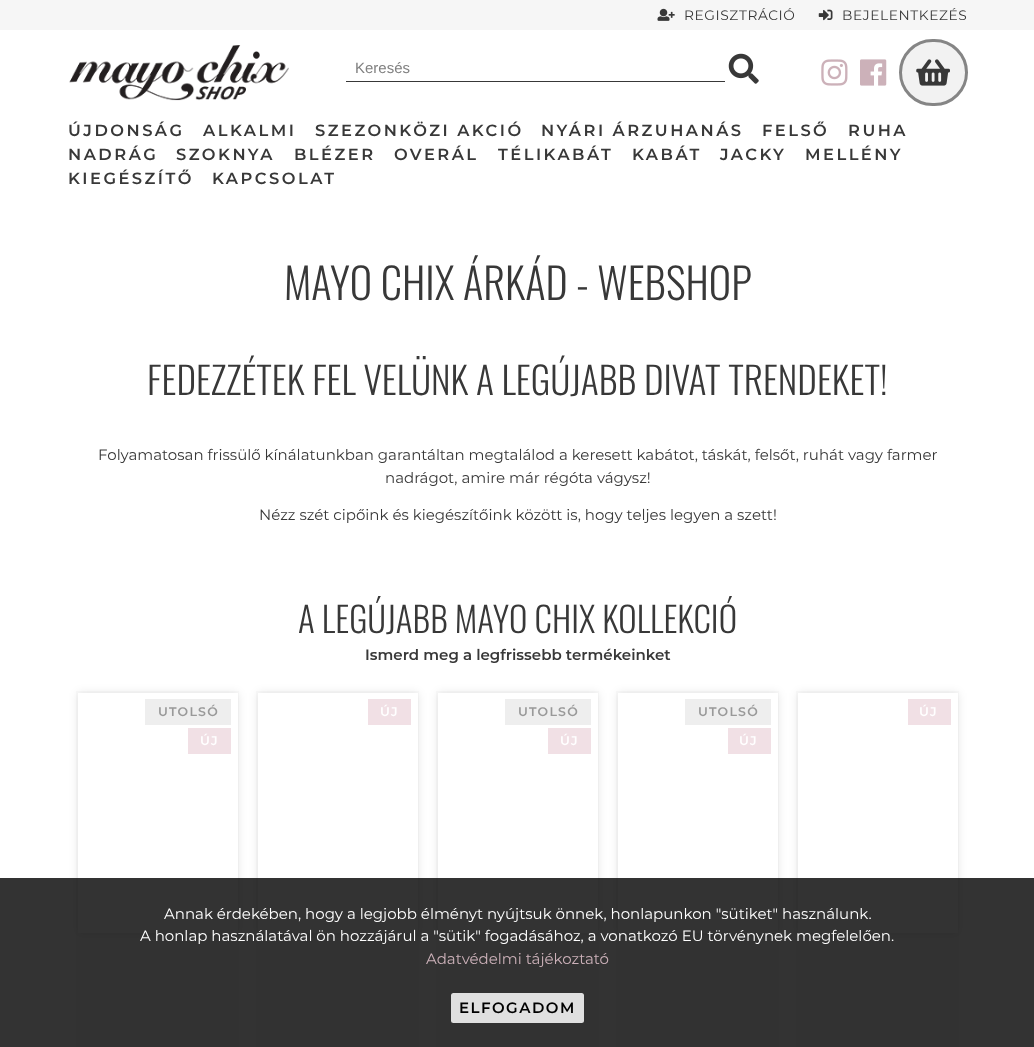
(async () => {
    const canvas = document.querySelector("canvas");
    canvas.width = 1034;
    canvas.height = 1047;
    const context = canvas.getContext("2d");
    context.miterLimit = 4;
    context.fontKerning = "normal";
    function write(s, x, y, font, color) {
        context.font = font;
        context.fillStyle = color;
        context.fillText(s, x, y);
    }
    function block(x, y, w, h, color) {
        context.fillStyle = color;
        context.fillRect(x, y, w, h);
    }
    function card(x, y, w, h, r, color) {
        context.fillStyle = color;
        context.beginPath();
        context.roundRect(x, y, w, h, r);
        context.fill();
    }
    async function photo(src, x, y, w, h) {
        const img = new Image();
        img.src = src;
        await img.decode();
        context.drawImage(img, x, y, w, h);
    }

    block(0, 0, 1034, 1047, "rgb(255, 255, 255)");
    block(0, 0, 1034, 30, "rgb(246, 246, 246)");
    await photo("media/1.png", 657, 8, 18, 13);
    context.letterSpacing = "0.6px";
    write("REGISZTRÁCIÓ", 684, 20, "13.75px Montserrat", "rgb(56, 56, 56)");
    await photo("media/2.png", 818, 9, 15, 12);
    write("BEJELENTKEZÉS", 842, 20, "13.75px Montserrat", "rgb(56, 56, 56)");
    await photo("media/3.png", 69, 45, 220, 56);
    block(346, 81, 379, 1, "rgb(56, 56, 56)");
    context.letterSpacing = "0px";
    write("Keresés", 355, 73, "15px Liberation Sans", "rgb(128, 128, 128)");
    await photo("media/4.png", 728, 53, 31, 31);
    await photo("media/5.png", 821, 59, 27, 27);
    await photo("media/6.png", 860, 59, 27, 27);
    card(899, 39, 69, 67, 33.5, "rgb(242, 242, 242)");
    context.beginPath();
    context.roundRect(900.5, 40.5, 66, 64, 32);
    context.strokeStyle = "rgba(0, 0, 0, 0.45)";
    context.lineWidth = 3;
    context.stroke();
    await photo("media/7.png", 916, 59, 34, 27);
    context.letterSpacing = "2.5px";
    write("ÚJDONSÁG", 68, 136, "600 16.25px Montserrat", "rgb(56, 56, 56)");
    write("ALKALMI", 203, 136, "600 16.25px Montserrat", "rgb(56, 56, 56)");
    write("SZEZONKÖZI AKCIÓ", 315, 136, "600 16.25px Montserrat", "rgb(56, 56, 56)");
    write("NYÁRI ÁRZUHANÁS", 541, 136, "600 16.25px Montserrat", "rgb(56, 56, 56)");
    write("FELSŐ", 762, 136, "600 16.25px Montserrat", "rgb(56, 56, 56)");
    write("RUHA", 848, 136, "600 16.25px Montserrat", "rgb(56, 56, 56)");
    write("NADRÁG", 68, 160, "600 16.25px Montserrat", "rgb(56, 56, 56)");
    write("SZOKNYA", 176, 160, "600 16.25px Montserrat", "rgb(56, 56, 56)");
    write("BLÉZER", 294, 160, "600 16.25px Montserrat", "rgb(56, 56, 56)");
    write("OVERÁL", 394, 160, "600 16.25px Montserrat", "rgb(56, 56, 56)");
    write("TÉLIKABÁT", 498, 160, "600 16.25px Montserrat", "rgb(56, 56, 56)");
    write("KABÁT", 632, 160, "600 16.25px Montserrat", "rgb(56, 56, 56)");
    write("JACKY", 720, 160, "600 16.25px Montserrat", "rgb(56, 56, 56)");
    write("MELLÉNY", 805, 160, "600 16.25px Montserrat", "rgb(56, 56, 56)");
    write("KIEGÉSZÍTŐ", 68, 184, "600 16.25px Montserrat", "rgb(56, 56, 56)");
    write("KAPCSOLAT", 212, 184, "600 16.25px Montserrat", "rgb(56, 56, 56)");
    context.letterSpacing = "0px";
    write("MAYO CHIX ÁRKÁD - WEBSHOP", 284, 300, "300 42.5px Oswald", "rgb(56, 56, 56)");
    write("FEDEZZÉTEK FEL VELÜNK A LEGÚJABB DIVAT TRENDEKET!", 147, 395, "300 37.5px Oswald", "rgb(56, 56, 56)");
    write("Folyamatosan frissülő kínálatunkban garantáltan megtalálod a keresett kabátot, táskát, felsőt, ruhát vagy farmer", 98, 460, "15px Montserrat", "rgb(56, 56, 56)");
    write("nadrágot, amire már régóta vágysz!", 385, 483, "15px Montserrat", "rgb(56, 56, 56)");
    write("Nézz szét cipőink és kiegészítőink között is, hogy teljes legyen a szett!", 259, 520, "15px Montserrat", "rgb(56, 56, 56)");
    write("A LEGÚJABB MAYO CHIX KOLLEKCIÓ", 298, 633, "300 35px Oswald", "rgb(56, 56, 56)");
    write("Ismerd meg a legfrissebb termékeinket", 365, 660, "600 15px Montserrat", "rgb(56, 56, 56)");
    block(76, 691, 163, 356, "rgb(250, 250, 250)");
    context.fillStyle = "rgba(0, 0, 0, 0.1)";
    context.filter = "blur(5px)";
    context.beginPath();
    context.rect(78, 693, 160, 240);
    context.fill();
    context.filter = "none";
    block(78, 693, 160, 240, "rgb(255, 255, 255)");
    block(145, 699, 86, 26, "rgb(238, 238, 238)");
    context.letterSpacing = "1.25px";
    write("UTOLSÓ", 158, 716, "600 12.5px Montserrat", "rgb(153, 153, 153)");
    block(188, 728, 43, 26, "rgb(241, 224, 229)");
    write("ÚJ", 200, 745, "600 12.5px Montserrat", "rgb(255, 255, 255)");
    block(256, 691, 163, 356, "rgb(250, 250, 250)");
    context.fillStyle = "rgba(0, 0, 0, 0.1)";
    context.filter = "blur(5px)";
    context.beginPath();
    context.rect(258, 693, 160, 240);
    context.fill();
    context.filter = "none";
    block(258, 693, 160, 240, "rgb(255, 255, 255)");
    block(368, 699, 43, 26, "rgb(241, 224, 229)");
    write("ÚJ", 380, 716, "600 12.5px Montserrat", "rgb(255, 255, 255)");
    block(436, 691, 163, 356, "rgb(250, 250, 250)");
    context.fillStyle = "rgba(0, 0, 0, 0.1)";
    context.filter = "blur(5px)";
    context.beginPath();
    context.rect(438, 693, 160, 240);
    context.fill();
    context.filter = "none";
    block(438, 693, 160, 240, "rgb(255, 255, 255)");
    block(505, 699, 86, 26, "rgb(238, 238, 238)");
    write("UTOLSÓ", 518, 716, "600 12.5px Montserrat", "rgb(153, 153, 153)");
    block(548, 728, 43, 26, "rgb(241, 224, 229)");
    write("ÚJ", 560, 745, "600 12.5px Montserrat", "rgb(255, 255, 255)");
    block(616, 691, 163, 356, "rgb(250, 250, 250)");
    context.fillStyle = "rgba(0, 0, 0, 0.1)";
    context.filter = "blur(5px)";
    context.beginPath();
    context.rect(618, 693, 160, 240);
    context.fill();
    context.filter = "none";
    block(618, 693, 160, 240, "rgb(255, 255, 255)");
    block(685, 699, 86, 26, "rgb(238, 238, 238)");
    write("UTOLSÓ", 698, 716, "600 12.5px Montserrat", "rgb(153, 153, 153)");
    block(728, 728, 43, 26, "rgb(241, 224, 229)");
    write("ÚJ", 739, 745, "600 12.5px Montserrat", "rgb(255, 255, 255)");
    block(796, 691, 163, 356, "rgb(250, 250, 250)");
    context.fillStyle = "rgba(0, 0, 0, 0.1)";
    context.filter = "blur(5px)";
    context.beginPath();
    context.rect(798, 693, 160, 240);
    context.fill();
    context.filter = "none";
    block(798, 693, 160, 240, "rgb(255, 255, 255)");
    block(908, 699, 43, 26, "rgb(241, 224, 229)");
    write("ÚJ", 919, 716, "600 12.5px Montserrat", "rgb(255, 255, 255)");
    block(0, 878, 1034, 169, "rgba(0, 0, 0, 0.8)");
    context.letterSpacing = "0px";
    write("Annak érdekében, hogy a legjobb élményt nyújtsuk önnek, honlapunkon \"sütiket\" használunk.", 164, 919, "15px Montserrat", "rgb(255, 255, 255)");
    write("A honlap használatával ön hozzájárul a \"sütik\" fogadásához, a vonatkozó EU törvénynek megfelelően.", 140, 941, "15px Montserrat", "rgb(255, 255, 255)");
    write("Adatvédelmi tájékoztató", 426, 964, "15px Montserrat", "rgb(204, 177, 185)");
    card(451, 993, 133, 30, 2.5, "rgb(224, 224, 224)");
    context.letterSpacing = "1.5px";
    write("ELFOGADOM", 459, 1013, "600 15px Montserrat", "rgb(0, 0, 0)");
})();
